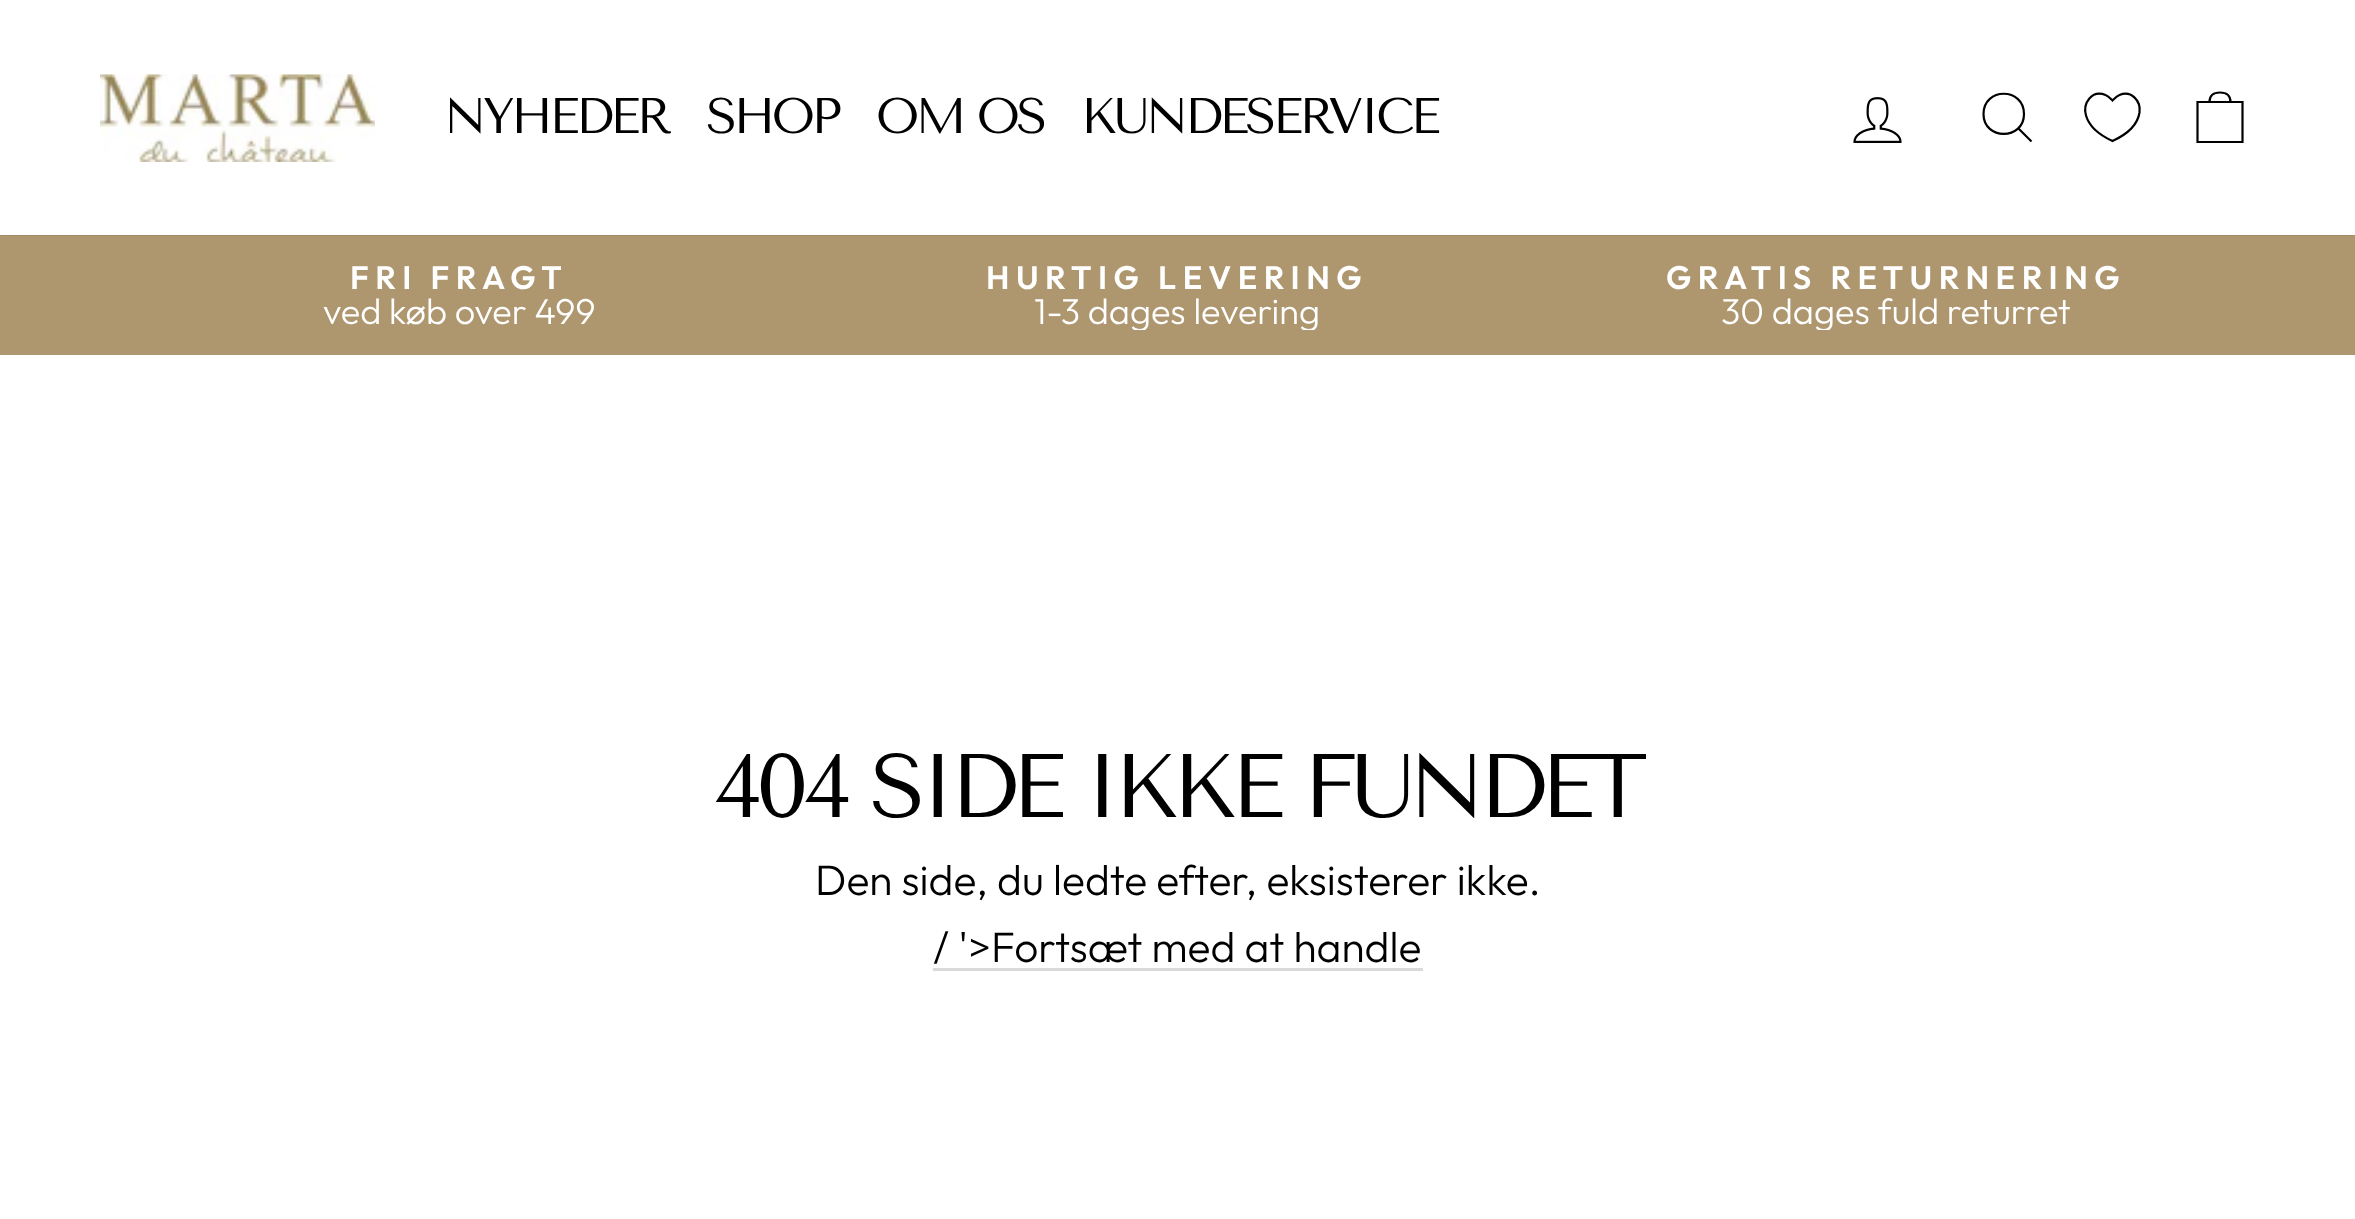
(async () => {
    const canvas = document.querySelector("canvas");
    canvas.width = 2355;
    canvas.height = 1219;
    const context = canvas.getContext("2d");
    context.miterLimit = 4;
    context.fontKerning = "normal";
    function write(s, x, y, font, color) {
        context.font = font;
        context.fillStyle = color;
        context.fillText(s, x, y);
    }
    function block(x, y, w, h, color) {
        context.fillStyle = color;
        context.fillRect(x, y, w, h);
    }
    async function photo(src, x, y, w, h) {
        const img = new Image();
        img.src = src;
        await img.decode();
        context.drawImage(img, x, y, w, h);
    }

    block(0, 0, 2355, 1219, "rgb(255, 255, 255)");
    block(0, 235, 2355, 120, "rgb(174, 151, 111)");
    context.save();
    context.beginPath();
    context.rect(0, 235, 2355, 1);
    context.clip();
    context.fillStyle = "rgba(0, 0, 0, 0.2)";
    context.filter = "blur(1px)";
    context.beginPath();
    context.rect(0, 0, 2355, 235);
    context.fill();
    context.filter = "none";
    context.restore();
    await photo("media/1.png", 100, 74, 275, 88);
    context.letterSpacing = "-3.75px";
    write("NYHEDER", 444, 133, "50px Tenor Sans", "rgb(0, 0, 0)");
    write("SHOP", 706, 133, "50px Tenor Sans", "rgb(0, 0, 0)");
    write("OM OS", 876, 133, "50px Tenor Sans", "rgb(0, 0, 0)");
    write("KUNDESERVICE", 1081, 133, "50px Tenor Sans", "rgb(0, 0, 0)");
    await photo("media/2.png", 1853, 97, 49, 46);
    context.beginPath();
    context.moveTo(2024, 114);
    context.bezierCurveTo(2024, 140.5, 1983.5, 140.5, 1983.5, 114);
    context.bezierCurveTo(1983.5, 87, 2024, 87, 2024, 114);
    context.closePath();
    context.moveTo(2031.5, 141.5);
    context.lineTo(2018.5, 128.5);
    context.strokeStyle = "rgb(0, 0, 0)";
    context.lineWidth = 2.2;
    context.stroke();
    context.beginPath();
    context.moveTo(2112.5, 141);
    context.bezierCurveTo(2101.5, 136, 2089.5, 127.5, 2086, 115.5);
    context.bezierCurveTo(2082.5, 103, 2092, 89.5, 2105.5, 95);
    context.bezierCurveTo(2108.5, 96, 2110.5, 98.5, 2112.5, 100.5);
    context.bezierCurveTo(2114.5, 98.5, 2116.5, 96, 2119.5, 95);
    context.bezierCurveTo(2131, 90, 2141, 100.5, 2139.5, 112.5);
    context.bezierCurveTo(2137.5, 126, 2124.5, 135.5, 2112.5, 141);
    context.closePath();
    context.stroke();
    context.beginPath();
    context.moveTo(2197.5, 102);
    context.lineTo(2242.5, 102);
    context.lineTo(2242.5, 142);
    context.lineTo(2197.5, 142);
    context.closePath();
    context.moveTo(2209.5, 102);
    context.bezierCurveTo(2209.5, 94.5, 2214, 92.5, 2220, 92.5);
    context.bezierCurveTo(2226, 92.5, 2230.5, 94.5, 2230.5, 102);
    context.stroke();
    context.letterSpacing = "6.5px";
    write("FRI FRAGT", 350, 289, "600 32.5px Outfit", "rgb(255, 255, 255)");
    context.letterSpacing = "0px";
    write("ved køb over 499", 323, 324, "300 36.1px Outfit", "rgb(255, 255, 255)");
    context.letterSpacing = "6.5px";
    write("HURTIG LEVERING", 986, 289, "600 32.5px Outfit", "rgb(255, 255, 255)");
    context.save();
    context.beginPath();
    context.rect(818, 260, 720, 70);
    context.clip();
    context.letterSpacing = "0px";
    write("1-3 dages levering", 1034, 324, "300 36.1px Outfit", "rgb(255, 255, 255)");
    context.restore();
    write("GRATIS RETURNERING", 1666, 289, "600 32.5px Outfit", "rgb(255, 255, 255)");
    context.save();
    context.beginPath();
    context.rect(1538, 260, 717, 70);
    context.clip();
    context.letterSpacing = "0px";
    write("30 dages fuld returret", 1721, 324, "300 36.1px Outfit", "rgb(255, 255, 255)");
    context.restore();
    context.letterSpacing = "-6.75px";
    write("404 SIDE IKKE FUNDET", 713, 817, "90px Tenor Sans", "rgb(0, 0, 0)");
    context.letterSpacing = "0px";
    write("Den side, du ledte efter, eksisterer ikke.", 815, 895, "300 42.5px Outfit", "rgb(0, 0, 0)");
    block(933, 968, 490, 3, "rgb(217, 217, 217)");
    write("/ '>Fortsæt med at handle", 933, 962, "300 42.5px Outfit", "rgb(0, 0, 0)");
})();
